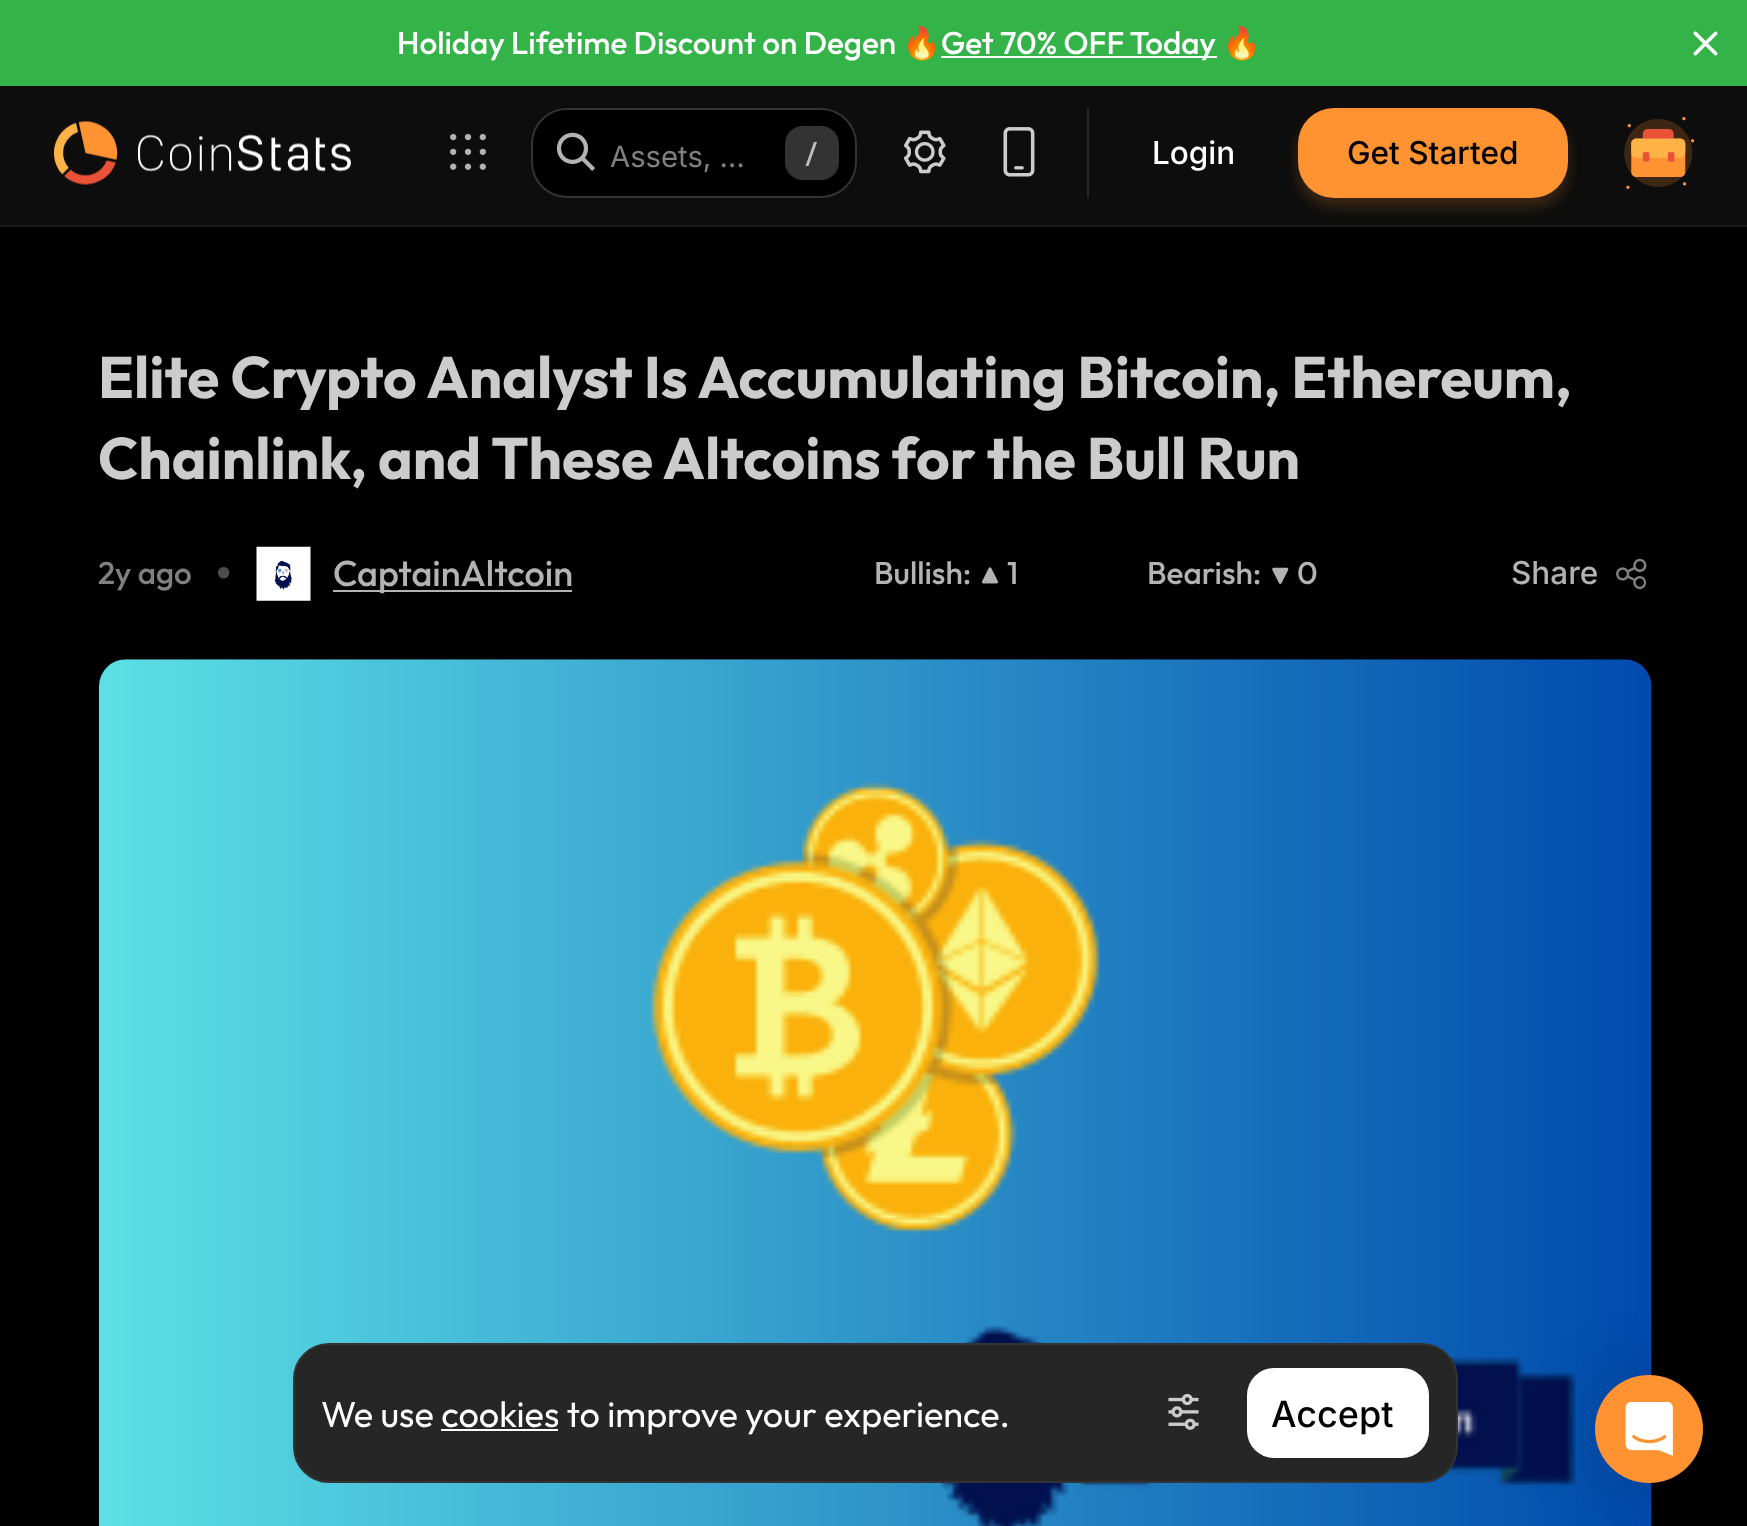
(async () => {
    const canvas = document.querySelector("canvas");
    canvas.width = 1747;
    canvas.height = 1526;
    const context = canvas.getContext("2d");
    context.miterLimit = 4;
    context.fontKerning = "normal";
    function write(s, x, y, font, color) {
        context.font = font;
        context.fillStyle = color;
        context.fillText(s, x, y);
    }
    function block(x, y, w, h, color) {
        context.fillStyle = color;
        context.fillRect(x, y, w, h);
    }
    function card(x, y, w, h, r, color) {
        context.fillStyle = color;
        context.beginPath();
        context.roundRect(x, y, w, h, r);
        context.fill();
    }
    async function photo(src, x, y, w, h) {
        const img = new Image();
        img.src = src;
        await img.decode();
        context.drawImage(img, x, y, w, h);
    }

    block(0, 0, 1747, 1526, "rgb(0, 0, 0)");
    block(0, 0, 1747, 86, "rgb(52, 179, 73)");
    write("Holiday Lifetime Discount on Degen", 397, 54, "500 31.5px Outfit", "rgb(255, 255, 255)");
    write("🔥", 902, 54, "31.5px Noto Color Emoji", "rgb(255, 255, 255)");
    block(941, 56, 276, 2, "rgb(255, 255, 255)");
    write("Get 70% OFF Today", 941, 54, "500 31.5px Outfit", "rgb(255, 255, 255)");
    write("🔥", 1222, 54, "31.5px Noto Color Emoji", "rgb(255, 255, 255)");
    await photo("media/1.png", 1693, 31, 25, 25);
    block(0, 225, 1747, 2, "rgb(26, 26, 26)");
    block(0, 86, 1747, 139, "rgb(13, 13, 13)");
    await photo("media/2.png", 54, 121, 297, 64);
    await photo("media/3.png", 450, 133, 36, 37);
    context.fillStyle = "rgb(0, 0, 0)";
    context.beginPath();
    context.roundRect(532, 109, 324, 88, 35);
    context.fill();
    context.strokeStyle = "rgb(51, 51, 51)";
    context.lineWidth = 2;
    context.stroke();
    await photo("media/4.png", 556, 132, 39, 39);
    write("Assets, …", 610, 167, "29.25px Inter", "rgb(128, 128, 128)");
    card(785, 126, 54, 54, 18, "rgb(51, 51, 51)");
    context.fillStyle = "rgb(191, 191, 191)";
    context.beginPath();
    context.moveTo(817, 142);
    context.lineTo(808.5, 166);
    context.lineTo(805.5, 166);
    context.lineTo(814, 142);
    context.closePath();
    context.fill();
    await photo("media/5.png", 903, 130, 43, 44);
    await photo("media/6.png", 1003, 127, 32, 50);
    block(1087, 108, 2, 90, "rgb(38, 38, 38)");
    write("Login", 1152, 164, "500 31.5px Inter", "rgb(255, 255, 255)");
    context.fillStyle = "rgba(255, 147, 50, 0.2)";
    context.filter = "blur(7px)";
    context.beginPath();
    context.roundRect(1298, 117, 270, 90, 36);
    context.fill();
    context.filter = "none";
    card(1298, 108, 270, 90, 36, "rgb(255, 147, 50)");
    write("Get Started", 1347, 164, "500 31.5px Inter", "rgb(0, 0, 0)");
    await photo("media/7.png", 1624, 117, 70, 72);
    write("Elite Crypto Analyst Is Accumulating Bitcoin, Ethereum,", 98, 398, "bold 58.5px Outfit", "rgb(204, 204, 204)");
    write("Chainlink, and These Altcoins for the Bull Run", 98, 479, "bold 58.5px Outfit", "rgb(204, 204, 204)");
    write("2y ago", 98, 584, "500 31.5px Outfit", "rgb(128, 128, 128)");
    write("•", 214, 594, "58.5px Outfit", "rgb(77, 77, 77)");
    await photo("media/8.png", 256, 546, 55, 55);
    block(333, 590, 239, 2, "rgb(179, 179, 179)");
    write("CaptainAltcoin", 333, 586, "500 36px Outfit", "rgb(179, 179, 179)");
    write("Bullish:", 874, 584, "500 31.5px Outfit", "rgb(179, 179, 179)");
    await photo("media/9.png", 982, 567, 16, 17);
    write("1", 1007, 584, "500 31.5px Outfit", "rgb(179, 179, 179)");
    write("Bearish:", 1147, 584, "500 31.5px Outfit", "rgb(179, 179, 179)");
    await photo("media/10.png", 1272, 567, 17, 17);
    write("0", 1297, 584, "500 31.5px Outfit", "rgb(179, 179, 179)");
    write("Share", 1511, 584, "500 31.5px Inter", "rgb(179, 179, 179)");
    await photo("media/11.png", 1616, 558, 31, 32);
    await photo("media/12.png", 99, 659, 1553, 867);
    context.fillStyle = "rgb(38, 38, 38)";
    context.beginPath();
    context.roundRect(294, 1344, 1163, 138, 35);
    context.fill();
    context.stroke();
    write("We use cookies to improve your experience.", 321, 1427, "36px Outfit", "rgb(255, 255, 255)");
    block(441, 1429, 117, 2, "rgb(255, 255, 255)");
    await photo("media/13.png", 1168, 1393, 31, 37);
    card(1247, 1368, 182, 90, 27, "rgb(255, 255, 255)");
    write("Accept", 1271, 1427, "500 36px Inter", "rgb(0, 0, 0)");
    context.fillStyle = "rgba(0, 0, 0, 0.16)";
    context.filter = "blur(36px)";
    context.beginPath();
    context.roundRect(1595, 1379, 108, 108, 54);
    context.fill();
    context.filter = "none";
    context.fillStyle = "rgb(255, 147, 50)";
    context.beginPath();
    context.arc(1649, 1429, 54, 0, Math.PI * 2);
    context.fill();
    await photo("media/14.png", 1625, 1402, 48, 54);
})();
